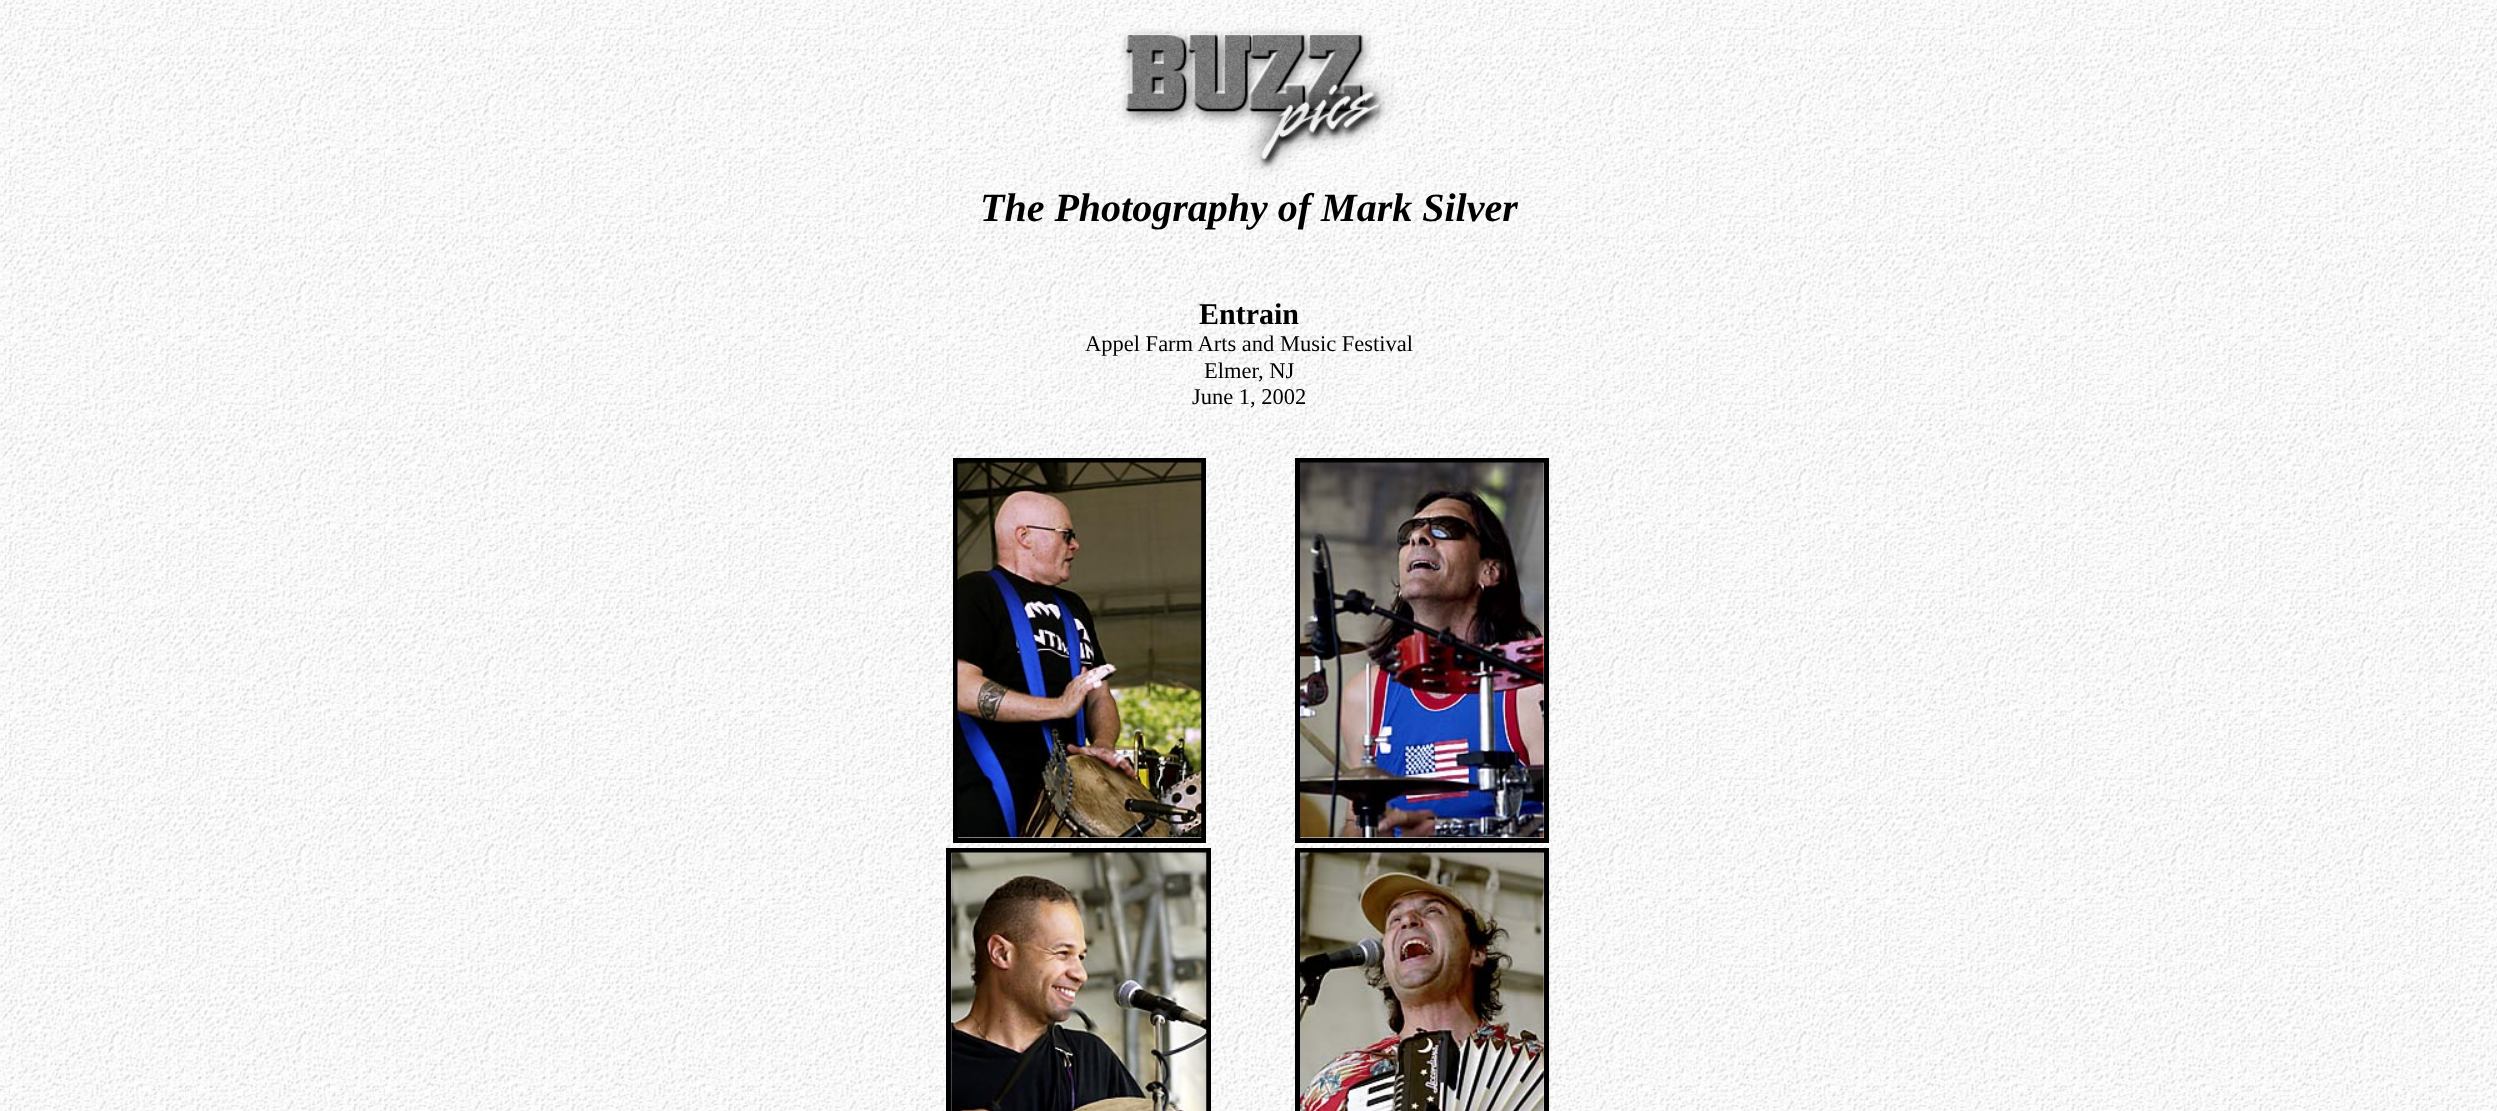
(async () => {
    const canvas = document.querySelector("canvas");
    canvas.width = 2497;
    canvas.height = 1111;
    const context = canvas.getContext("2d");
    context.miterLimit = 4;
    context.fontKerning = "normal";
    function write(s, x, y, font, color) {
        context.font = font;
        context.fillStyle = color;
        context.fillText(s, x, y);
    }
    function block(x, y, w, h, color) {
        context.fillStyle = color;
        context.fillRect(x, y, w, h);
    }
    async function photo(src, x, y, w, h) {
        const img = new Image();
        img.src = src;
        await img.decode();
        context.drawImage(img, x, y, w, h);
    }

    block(0, 0, 2497, 1111, "rgb(255, 255, 255)");
    await photo("media/1.png", 0, 0, 2497, 1111);
    await photo("media/2.png", 1105, 10, 289, 175);
    write("The Photography of Mark Silver", 980, 221, "italic bold 40px Liberation Serif", "rgb(0, 0, 0)");
    write("Entrain", 1199, 324, "bold 30px Liberation Serif", "rgb(0, 0, 0)");
    write("Appel Farm Arts and Music Festival", 1085, 351, "22.5px Liberation Serif", "rgb(0, 0, 0)");
    write("Elmer, NJ", 1204, 378, "22.5px Liberation Serif", "rgb(0, 0, 0)");
    write("June 1, 2002", 1192, 404, "22.5px Liberation Serif", "rgb(0, 0, 0)");
    context.strokeStyle = "rgb(0, 0, 0)";
    context.lineWidth = 5;
    context.strokeRect(955.5, 460.5, 248, 380);
    await photo("media/3.png", 957, 462, 245, 376);
    context.strokeRect(1297.5, 460.5, 249, 380);
    await photo("media/4.png", 1300, 462, 244, 376);
    context.strokeRect(948.5, 850.5, 260, 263);
    await photo("media/5.png", 951, 852, 256, 259);
    context.strokeRect(1297.5, 850.5, 249, 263);
    await photo("media/6.png", 1300, 852, 244, 259);
})();
